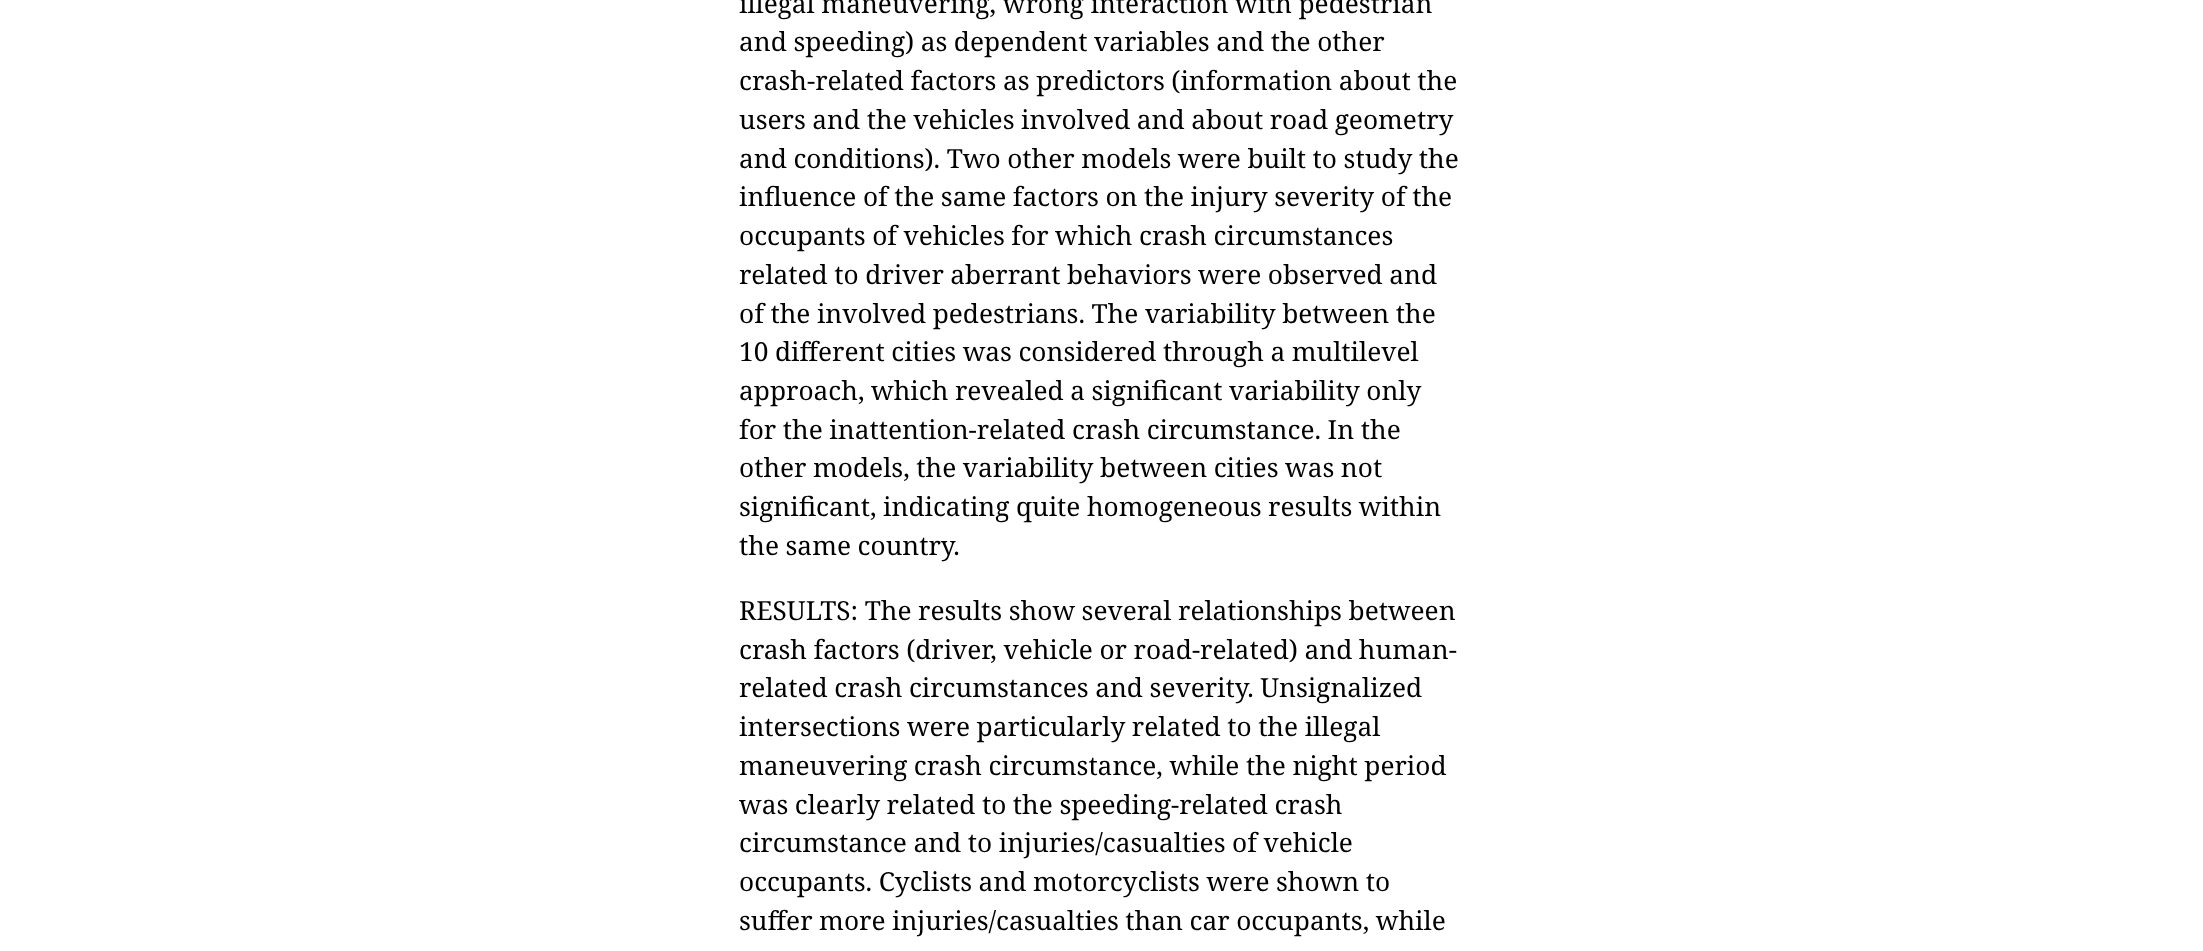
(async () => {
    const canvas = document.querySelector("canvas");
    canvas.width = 2203;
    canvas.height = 951;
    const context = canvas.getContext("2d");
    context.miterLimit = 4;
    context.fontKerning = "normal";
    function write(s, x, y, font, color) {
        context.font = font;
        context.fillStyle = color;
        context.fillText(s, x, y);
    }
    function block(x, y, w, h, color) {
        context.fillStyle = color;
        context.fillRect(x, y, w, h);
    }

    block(0, 0, 2203, 951, "rgb(255, 255, 255)");
    context.wordSpacing = "-0.25px";
    write("illegal maneuvering, wrong interaction with pedestrian", 739, 13, "26.25px Noto Serif", "rgb(0, 0, 0)");
    write("and speeding) as dependent variables and the other", 739, 51, "26.25px Noto Serif", "rgb(0, 0, 0)");
    write("crash-related factors as predictors (information about the", 739, 90, "26.25px Noto Serif", "rgb(0, 0, 0)");
    write("users and the vehicles involved and about road geometry", 739, 129, "26.25px Noto Serif", "rgb(0, 0, 0)");
    write("and conditions). Two other models were built to study the", 739, 168, "26.25px Noto Serif", "rgb(0, 0, 0)");
    write("influence of the same factors on the injury severity of the", 739, 206, "26.25px Noto Serif", "rgb(0, 0, 0)");
    write("occupants of vehicles for which crash circumstances", 739, 245, "26.25px Noto Serif", "rgb(0, 0, 0)");
    write("related to driver aberrant behaviors were observed and", 739, 284, "26.25px Noto Serif", "rgb(0, 0, 0)");
    write("of the involved pedestrians. The variability between the", 739, 323, "26.25px Noto Serif", "rgb(0, 0, 0)");
    write("10 different cities was considered through a multilevel", 739, 361, "26.25px Noto Serif", "rgb(0, 0, 0)");
    write("approach, which revealed a significant variability only", 739, 400, "26.25px Noto Serif", "rgb(0, 0, 0)");
    write("for the inattention-related crash circumstance. In the", 739, 439, "26.25px Noto Serif", "rgb(0, 0, 0)");
    write("other models, the variability between cities was not", 739, 477, "26.25px Noto Serif", "rgb(0, 0, 0)");
    write("significant, indicating quite homogeneous results within", 739, 516, "26.25px Noto Serif", "rgb(0, 0, 0)");
    write("the same country.", 739, 555, "26.25px Noto Serif", "rgb(0, 0, 0)");
    write("RESULTS: The results show several relationships between", 739, 620, "26.25px Noto Serif", "rgb(0, 0, 0)");
    write("crash factors (driver, vehicle or road-related) and human-", 739, 659, "26.25px Noto Serif", "rgb(0, 0, 0)");
    write("related crash circumstances and severity. Unsignalized", 739, 697, "26.25px Noto Serif", "rgb(0, 0, 0)");
    write("intersections were particularly related to the illegal", 739, 736, "26.25px Noto Serif", "rgb(0, 0, 0)");
    write("maneuvering crash circumstance, while the night period", 739, 775, "26.25px Noto Serif", "rgb(0, 0, 0)");
    write("was clearly related to the speeding-related crash", 739, 814, "26.25px Noto Serif", "rgb(0, 0, 0)");
    write("circumstance and to injuries/casualties of vehicle", 739, 852, "26.25px Noto Serif", "rgb(0, 0, 0)");
    write("occupants. Cyclists and motorcyclists were shown to", 739, 891, "26.25px Noto Serif", "rgb(0, 0, 0)");
    write("suffer more injuries/casualties than car occupants, while", 739, 930, "26.25px Noto Serif", "rgb(0, 0, 0)");
})();
